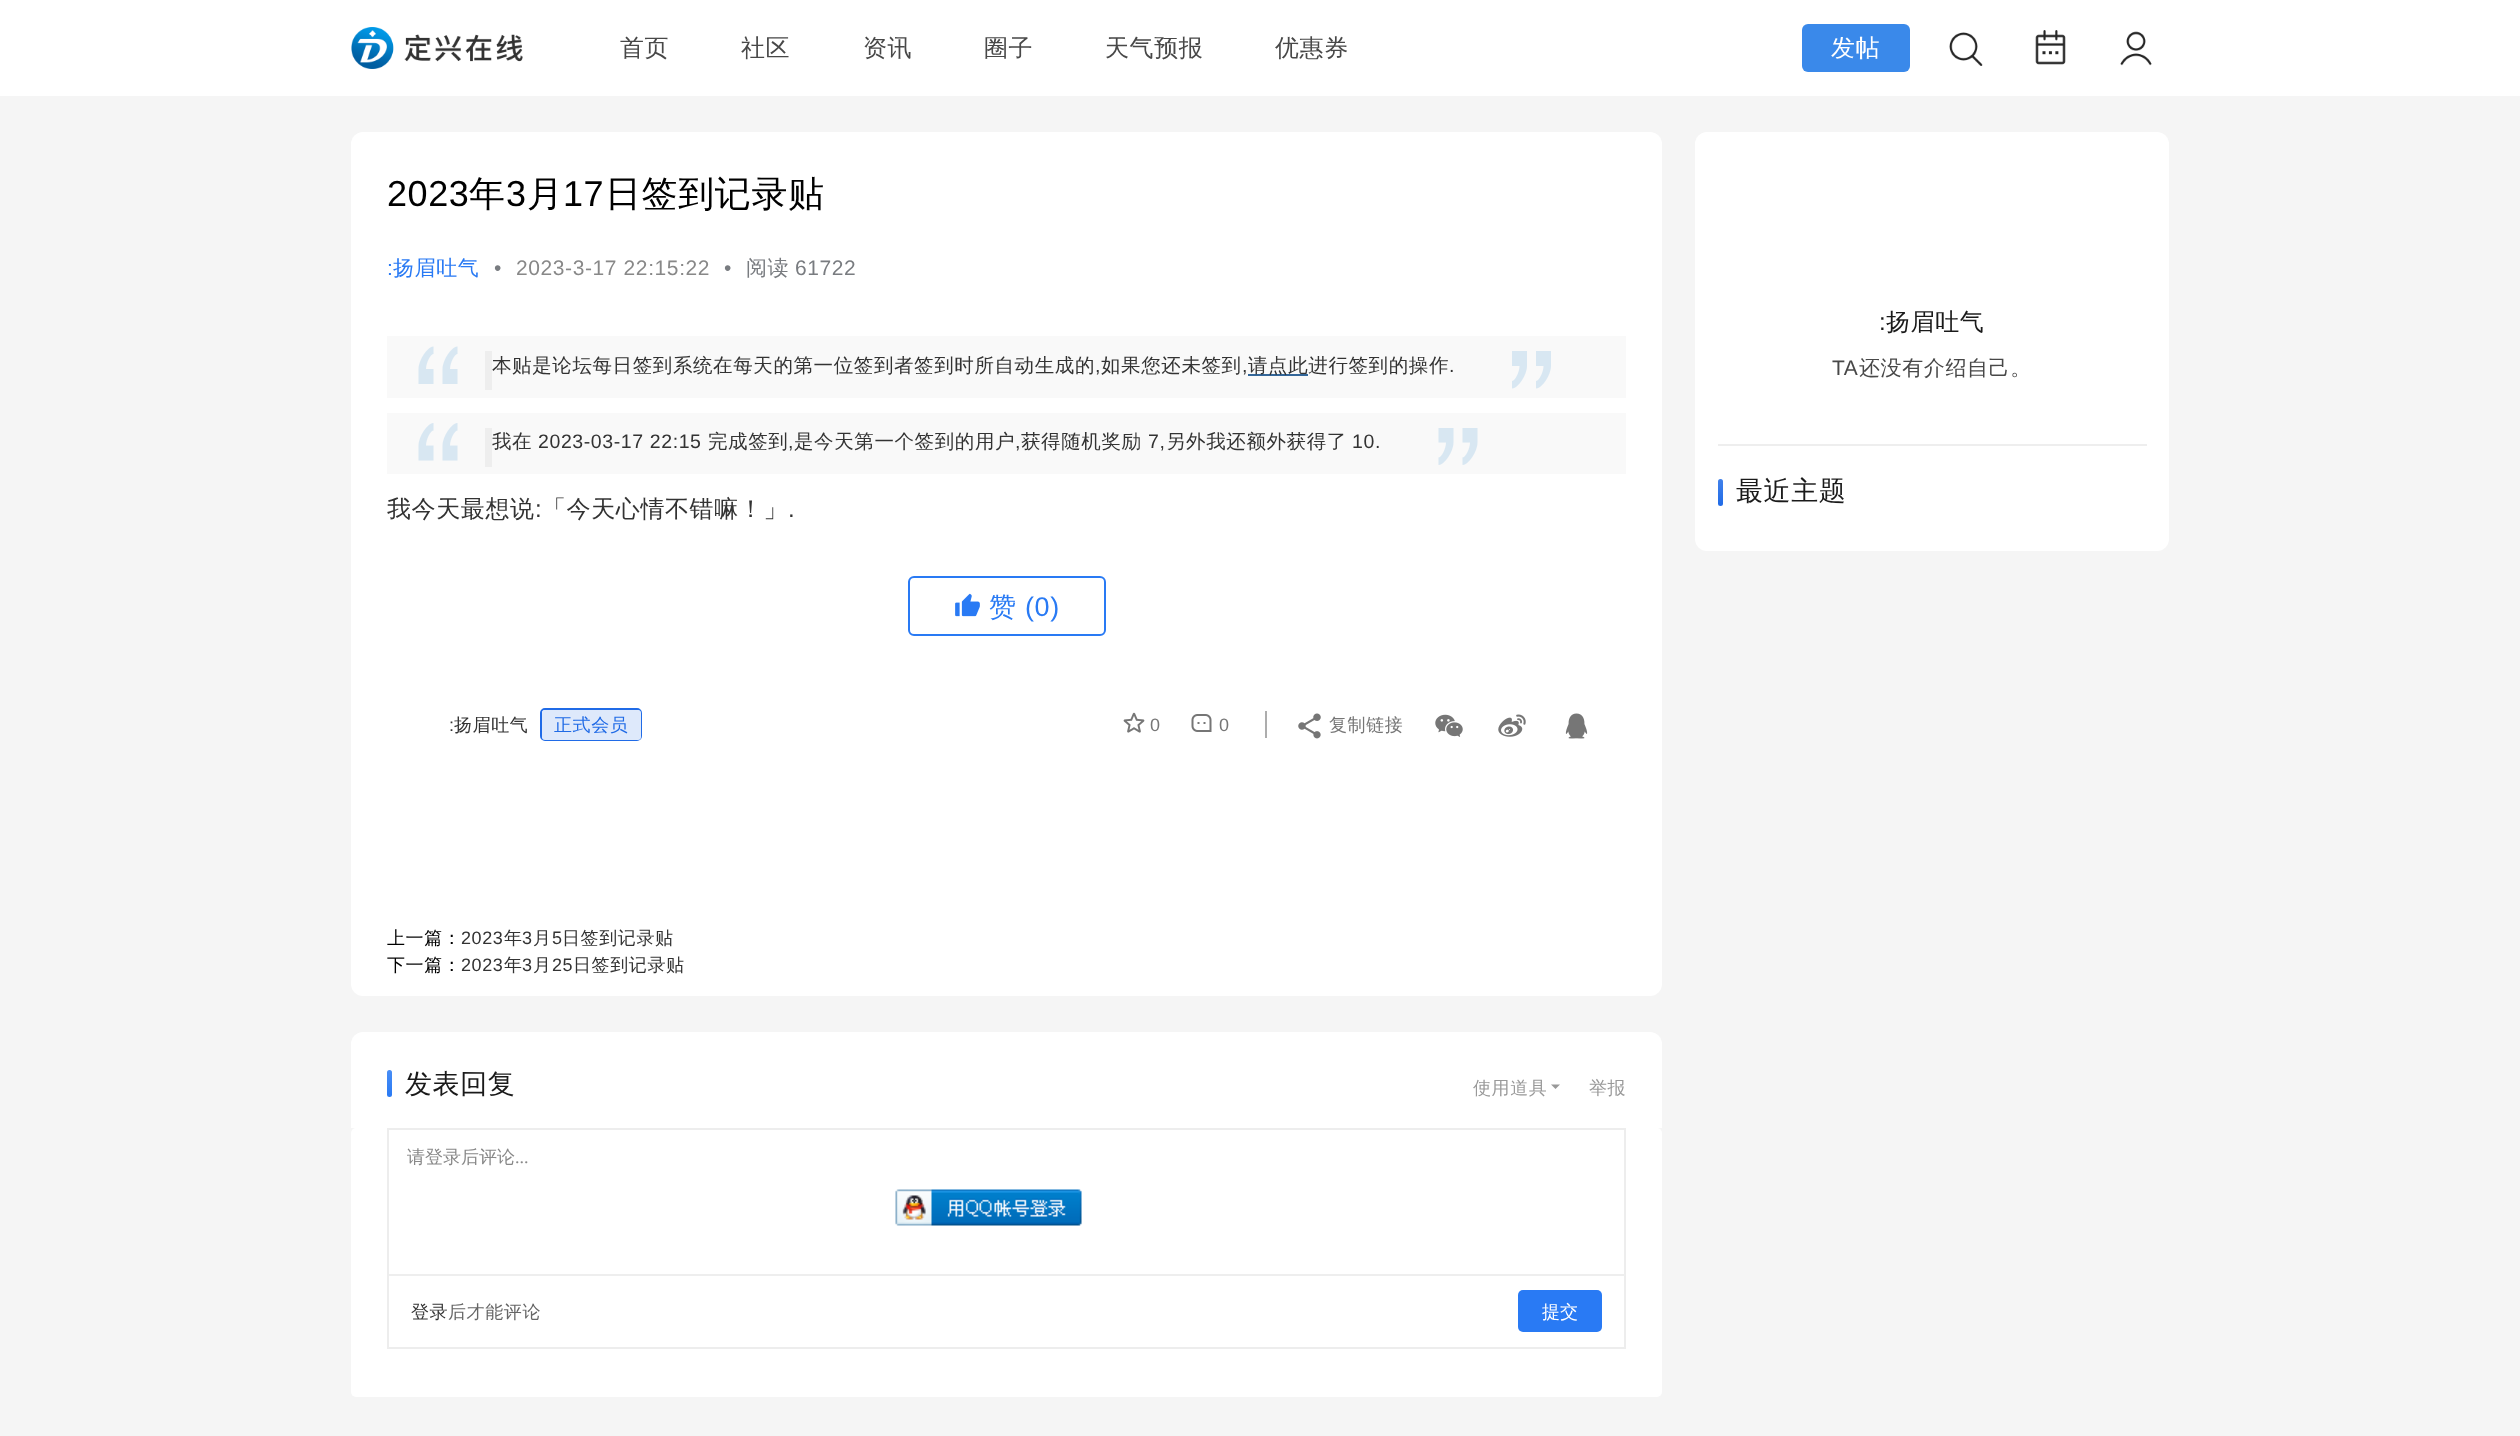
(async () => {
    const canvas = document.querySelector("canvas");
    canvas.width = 2520;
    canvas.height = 1436;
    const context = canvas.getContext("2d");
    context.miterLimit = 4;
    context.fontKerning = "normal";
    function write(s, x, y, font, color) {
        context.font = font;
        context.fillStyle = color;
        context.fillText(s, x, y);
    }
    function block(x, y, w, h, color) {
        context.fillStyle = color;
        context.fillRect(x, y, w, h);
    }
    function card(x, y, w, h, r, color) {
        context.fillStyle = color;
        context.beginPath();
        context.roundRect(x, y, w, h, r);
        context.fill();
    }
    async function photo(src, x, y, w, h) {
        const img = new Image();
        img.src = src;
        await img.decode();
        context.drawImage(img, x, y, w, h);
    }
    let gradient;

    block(0, 0, 2520, 1436, "rgb(245, 245, 245)");
    block(0, 0, 2520, 96, "rgb(255, 255, 255)");
    await photo("media/1.png", 351, 27, 172, 42);
    context.letterSpacing = "0.6px";
    write("首页", 620, 56, "500 24px WenQuanYi Zen Hei", "rgb(72, 72, 72)");
    write("社区", 741, 56, "500 24px WenQuanYi Zen Hei", "rgb(72, 72, 72)");
    write("资讯", 863, 56, "500 24px WenQuanYi Zen Hei", "rgb(72, 72, 72)");
    write("圈子", 984, 56, "500 24px WenQuanYi Zen Hei", "rgb(72, 72, 72)");
    write("天气预报", 1105, 56, "500 24px WenQuanYi Zen Hei", "rgb(72, 72, 72)");
    write("优惠券", 1275, 56, "500 24px WenQuanYi Zen Hei", "rgb(72, 72, 72)");
    card(1802, 24, 108, 48, 6, "rgb(58, 137, 234)");
    write("发帖", 1831, 56, "500 24px WenQuanYi Zen Hei", "rgb(255, 255, 255)");
    await photo("media/2.png", 1949, 32, 34, 34);
    await photo("media/3.png", 2035, 30, 31, 35);
    await photo("media/4.png", 2120, 31, 32, 35);
    context.beginPath();
    context.roundRect(351, 132, 1311, 105, [12, 12, 0, 0]);
    context.fill();
    write("2023", 387, 206, "36px Liberation Sans", "rgb(0, 0, 0)");
    write("年", 469, 206, "500 36px WenQuanYi Zen Hei", "rgb(0, 0, 0)");
    write("3", 506, 206, "36px Liberation Sans", "rgb(0, 0, 0)");
    write("月", 527, 206, "500 36px WenQuanYi Zen Hei", "rgb(0, 0, 0)");
    write("17", 563, 206, "36px Liberation Sans", "rgb(0, 0, 0)");
    write("日签到记录贴", 605, 206, "500 36px WenQuanYi Zen Hei", "rgb(0, 0, 0)");
    context.fillStyle = "rgb(255, 255, 255)";
    context.beginPath();
    context.roundRect(351, 237, 1311, 759, [0, 0, 12, 12]);
    context.fill();
    write(":", 387, 275, "21px Liberation Sans", "rgb(41, 122, 244)");
    write("扬眉吐气", 393, 275, "500 21px WenQuanYi Zen Hei", "rgb(41, 122, 244)");
    write("•", 494, 275, "21px Liberation Sans", "rgb(121, 124, 128)");
    write("2023-3-17 22:15:22", 516, 275, "21px Liberation Sans", "rgb(136, 136, 136)");
    write("•", 724, 275, "21px Liberation Sans", "rgb(121, 124, 128)");
    write("阅读", 746, 275, "500 21px WenQuanYi Zen Hei", "rgb(121, 124, 128)");
    write("61722", 795, 275, "21px Liberation Sans", "rgb(121, 124, 128)");
    block(387, 336, 1239, 62, "rgb(249, 249, 249)");
    await photo("media/5.png", 418, 346, 40, 38);
    await photo("media/6.png", 1512, 351, 39, 38);
    block(485, 351, 7, 39, "rgb(238, 238, 238)");
    write("本贴是论坛每日签到系统在每天的第一位签到者签到时所自动生成的", 492, 372, "500 19.5px WenQuanYi Zen Hei", "rgb(51, 51, 51)");
    write(",", 1095, 372, "19.5px Liberation Sans", "rgb(51, 51, 51)");
    write("如果您还未签到", 1101, 372, "500 19.5px WenQuanYi Zen Hei", "rgb(51, 51, 51)");
    write(",", 1242, 372, "19.5px Liberation Sans", "rgb(51, 51, 51)");
    block(1248, 374, 60, 2, "rgb(51, 102, 153)");
    write("请点此进行签到的操作", 1248, 372, "500 19.5px WenQuanYi Zen Hei", "rgb(51, 51, 51)");
    write(".", 1449, 372, "19.5px Liberation Sans", "rgb(51, 51, 51)");
    block(387, 413, 1239, 61, "rgb(249, 249, 249)");
    await photo("media/7.png", 418, 423, 40, 38);
    await photo("media/8.png", 1438, 428, 40, 37);
    block(485, 428, 7, 39, "rgb(238, 238, 238)");
    write("我在", 492, 448, "500 19.5px WenQuanYi Zen Hei", "rgb(51, 51, 51)");
    write("2023-03-17 22:15", 538, 448, "19.5px Liberation Sans", "rgb(51, 51, 51)");
    write("完成签到", 708, 448, "500 19.5px WenQuanYi Zen Hei", "rgb(51, 51, 51)");
    write(",", 788, 448, "19.5px Liberation Sans", "rgb(51, 51, 51)");
    write("是今天第一个签到的用户", 794, 448, "500 19.5px WenQuanYi Zen Hei", "rgb(51, 51, 51)");
    write(",", 1015, 448, "19.5px Liberation Sans", "rgb(51, 51, 51)");
    write("获得随机奖励", 1021, 448, "500 19.5px WenQuanYi Zen Hei", "rgb(51, 51, 51)");
    write("7,", 1148, 448, "19.5px Liberation Sans", "rgb(51, 51, 51)");
    write("另外我还额外获得了", 1166, 448, "500 19.5px WenQuanYi Zen Hei", "rgb(51, 51, 51)");
    write("10.", 1352, 448, "19.5px Liberation Sans", "rgb(51, 51, 51)");
    write("我今天最想说", 387, 517, "500 24px WenQuanYi Zen Hei", "rgb(51, 51, 51)");
    write(":", 535, 517, "24px Liberation Sans", "rgb(51, 51, 51)");
    write("「今天心情不错嘛！」", 542, 517, "500 24px WenQuanYi Zen Hei", "rgb(51, 51, 51)");
    write(".", 788, 517, "24px Liberation Sans", "rgb(51, 51, 51)");
    context.beginPath();
    context.roundRect(909, 577, 196, 58, 5);
    context.strokeStyle = "rgb(41, 122, 244)";
    context.lineWidth = 2;
    context.stroke();
    await photo("media/9.png", 955, 593, 25, 24);
    write("赞", 989, 616, "500 27px WenQuanYi Zen Hei", "rgb(41, 122, 244)");
    write("(0)", 1025, 616, "27px Liberation Sans", "rgb(41, 122, 244)");
    write(":", 449, 731, "18px Liberation Sans", "rgb(51, 51, 51)");
    write("扬眉吐气", 454, 731, "500 18px WenQuanYi Zen Hei", "rgb(51, 51, 51)");
    context.beginPath();
    context.roundRect(541, 709, 100, 31, 4);
    context.strokeStyle = "rgb(32, 107, 231)";
    context.stroke();
    card(542, 710, 99, 30, 3, "rgb(255, 255, 255)");
    write("正式会员", 554, 731, "500 18px WenQuanYi Zen Hei", "rgb(32, 107, 231)");
    card(542, 710, 99, 30, 3, "rgba(32, 107, 231, 0.15)");
    await photo("media/10.png", 1123, 712, 22, 21);
    write("0", 1150, 731, "18px Liberation Sans", "rgb(118, 118, 118)");
    await photo("media/11.png", 1191, 714, 21, 18);
    write("0", 1219, 731, "18px Liberation Sans", "rgb(118, 118, 118)");
    block(1265, 711, 2, 27, "rgb(173, 173, 173)");
    await photo("media/12.png", 1298, 713, 23, 26);
    write("复制链接", 1329, 731, "500 18px WenQuanYi Zen Hei", "rgb(118, 118, 118)");
    await photo("media/13.png", 1435, 714, 28, 23);
    await photo("media/14.png", 1498, 714, 28, 23);
    await photo("media/15.png", 1565, 713, 23, 26);
    write("上一篇：", 387, 944, "500 18px WenQuanYi Zen Hei", "rgb(0, 0, 0)");
    write("2023", 461, 944, "18px Liberation Sans", "rgb(51, 51, 51)");
    write("年", 504, 944, "500 18px WenQuanYi Zen Hei", "rgb(51, 51, 51)");
    write("3", 522, 944, "18px Liberation Sans", "rgb(51, 51, 51)");
    write("月", 533, 944, "500 18px WenQuanYi Zen Hei", "rgb(51, 51, 51)");
    write("5", 552, 944, "18px Liberation Sans", "rgb(51, 51, 51)");
    write("日签到记录贴", 562, 944, "500 18px WenQuanYi Zen Hei", "rgb(51, 51, 51)");
    write("下一篇：", 387, 971, "500 18px WenQuanYi Zen Hei", "rgb(0, 0, 0)");
    write("2023", 461, 971, "18px Liberation Sans", "rgb(51, 51, 51)");
    write("年", 504, 971, "500 18px WenQuanYi Zen Hei", "rgb(51, 51, 51)");
    write("3", 522, 971, "18px Liberation Sans", "rgb(51, 51, 51)");
    write("月", 533, 971, "500 18px WenQuanYi Zen Hei", "rgb(51, 51, 51)");
    write("25", 552, 971, "18px Liberation Sans", "rgb(51, 51, 51)");
    write("日签到记录贴", 573, 971, "500 18px WenQuanYi Zen Hei", "rgb(51, 51, 51)");
    context.fillStyle = "rgb(255, 255, 255)";
    context.beginPath();
    context.roundRect(351, 1032, 1311, 96, [12, 12, 0, 0]);
    context.fill();
    card(387, 1070, 5, 27, 2.5, "rgb(41, 122, 244)");
    gradient = context.createLinearGradient(389, 1070, 389, 1097);
    gradient.addColorStop(0, "rgba(255, 255, 255, 0.15)");
    gradient.addColorStop(1, "rgba(255, 255, 255, 0)");
    context.fillStyle = gradient;
    context.beginPath();
    context.roundRect(387, 1070, 5, 27, 2.5);
    context.fill();
    write("发表回复", 405, 1093, "500 27px WenQuanYi Zen Hei", "rgb(26, 26, 26)");
    write("使用道具", 1473, 1094, "500 18px WenQuanYi Zen Hei", "rgb(153, 153, 153)");
    context.beginPath();
    context.moveTo(1551, 1084.5);
    context.lineTo(1560, 1084.5);
    context.lineTo(1555.5, 1089);
    context.closePath();
    context.fill();
    write("举报", 1589, 1094, "500 18px WenQuanYi Zen Hei", "rgb(153, 153, 153)");
    card(351, 1128, 1311, 269, 5, "rgb(255, 255, 255)");
    context.strokeStyle = "rgb(237, 237, 237)";
    context.strokeRect(388, 1129, 1237, 219);
    context.letterSpacing = "0px";
    write("请登录后评论", 407, 1163, "500 18px WenQuanYi Zen Hei", "rgb(136, 136, 136)");
    write("...", 515, 1163, "18px Liberation Serif", "rgb(136, 136, 136)");
    await photo("media/16.png", 895, 1189, 187, 37);
    block(389, 1274, 1236, 2, "rgb(238, 238, 238)");
    context.letterSpacing = "0.6px";
    write("登录", 411, 1318, "500 18px WenQuanYi Zen Hei", "rgb(51, 51, 51)");
    write("后才能评论", 448, 1318, "500 18px WenQuanYi Zen Hei", "rgb(102, 102, 102)");
    card(1518, 1290, 84, 42, 5, "rgb(41, 122, 244)");
    context.letterSpacing = "0px";
    write("提交", 1542, 1318, "500 18px WenQuanYi Zen Hei", "rgb(255, 255, 255)");
    card(1695, 132, 474, 419, 12, "rgb(255, 255, 255)");
    context.letterSpacing = "0.6px";
    write(":", 1879, 330, "24px Liberation Sans", "rgb(26, 26, 26)");
    write("扬眉吐气", 1886, 330, "500 24px WenQuanYi Zen Hei", "rgb(26, 26, 26)");
    write("TA", 1832, 375, "21px Liberation Sans", "rgb(72, 72, 72)");
    write("还没有介绍自己。", 1859, 375, "500 21px WenQuanYi Zen Hei", "rgb(72, 72, 72)");
    block(1718, 444, 429, 2, "rgb(238, 238, 238)");
    card(1718, 479, 5, 27, 2.5, "rgb(32, 107, 231)");
    gradient = context.createLinearGradient(1720, 479, 1720, 506);
    gradient.addColorStop(0, "rgba(255, 255, 255, 0.15)");
    gradient.addColorStop(1, "rgba(255, 255, 255, 0)");
    context.fillStyle = gradient;
    context.beginPath();
    context.roundRect(1718, 479, 5, 27, 2.5);
    context.fill();
    write("最近主题", 1736, 500, "500 27px WenQuanYi Zen Hei", "rgb(26, 26, 26)");
})();
